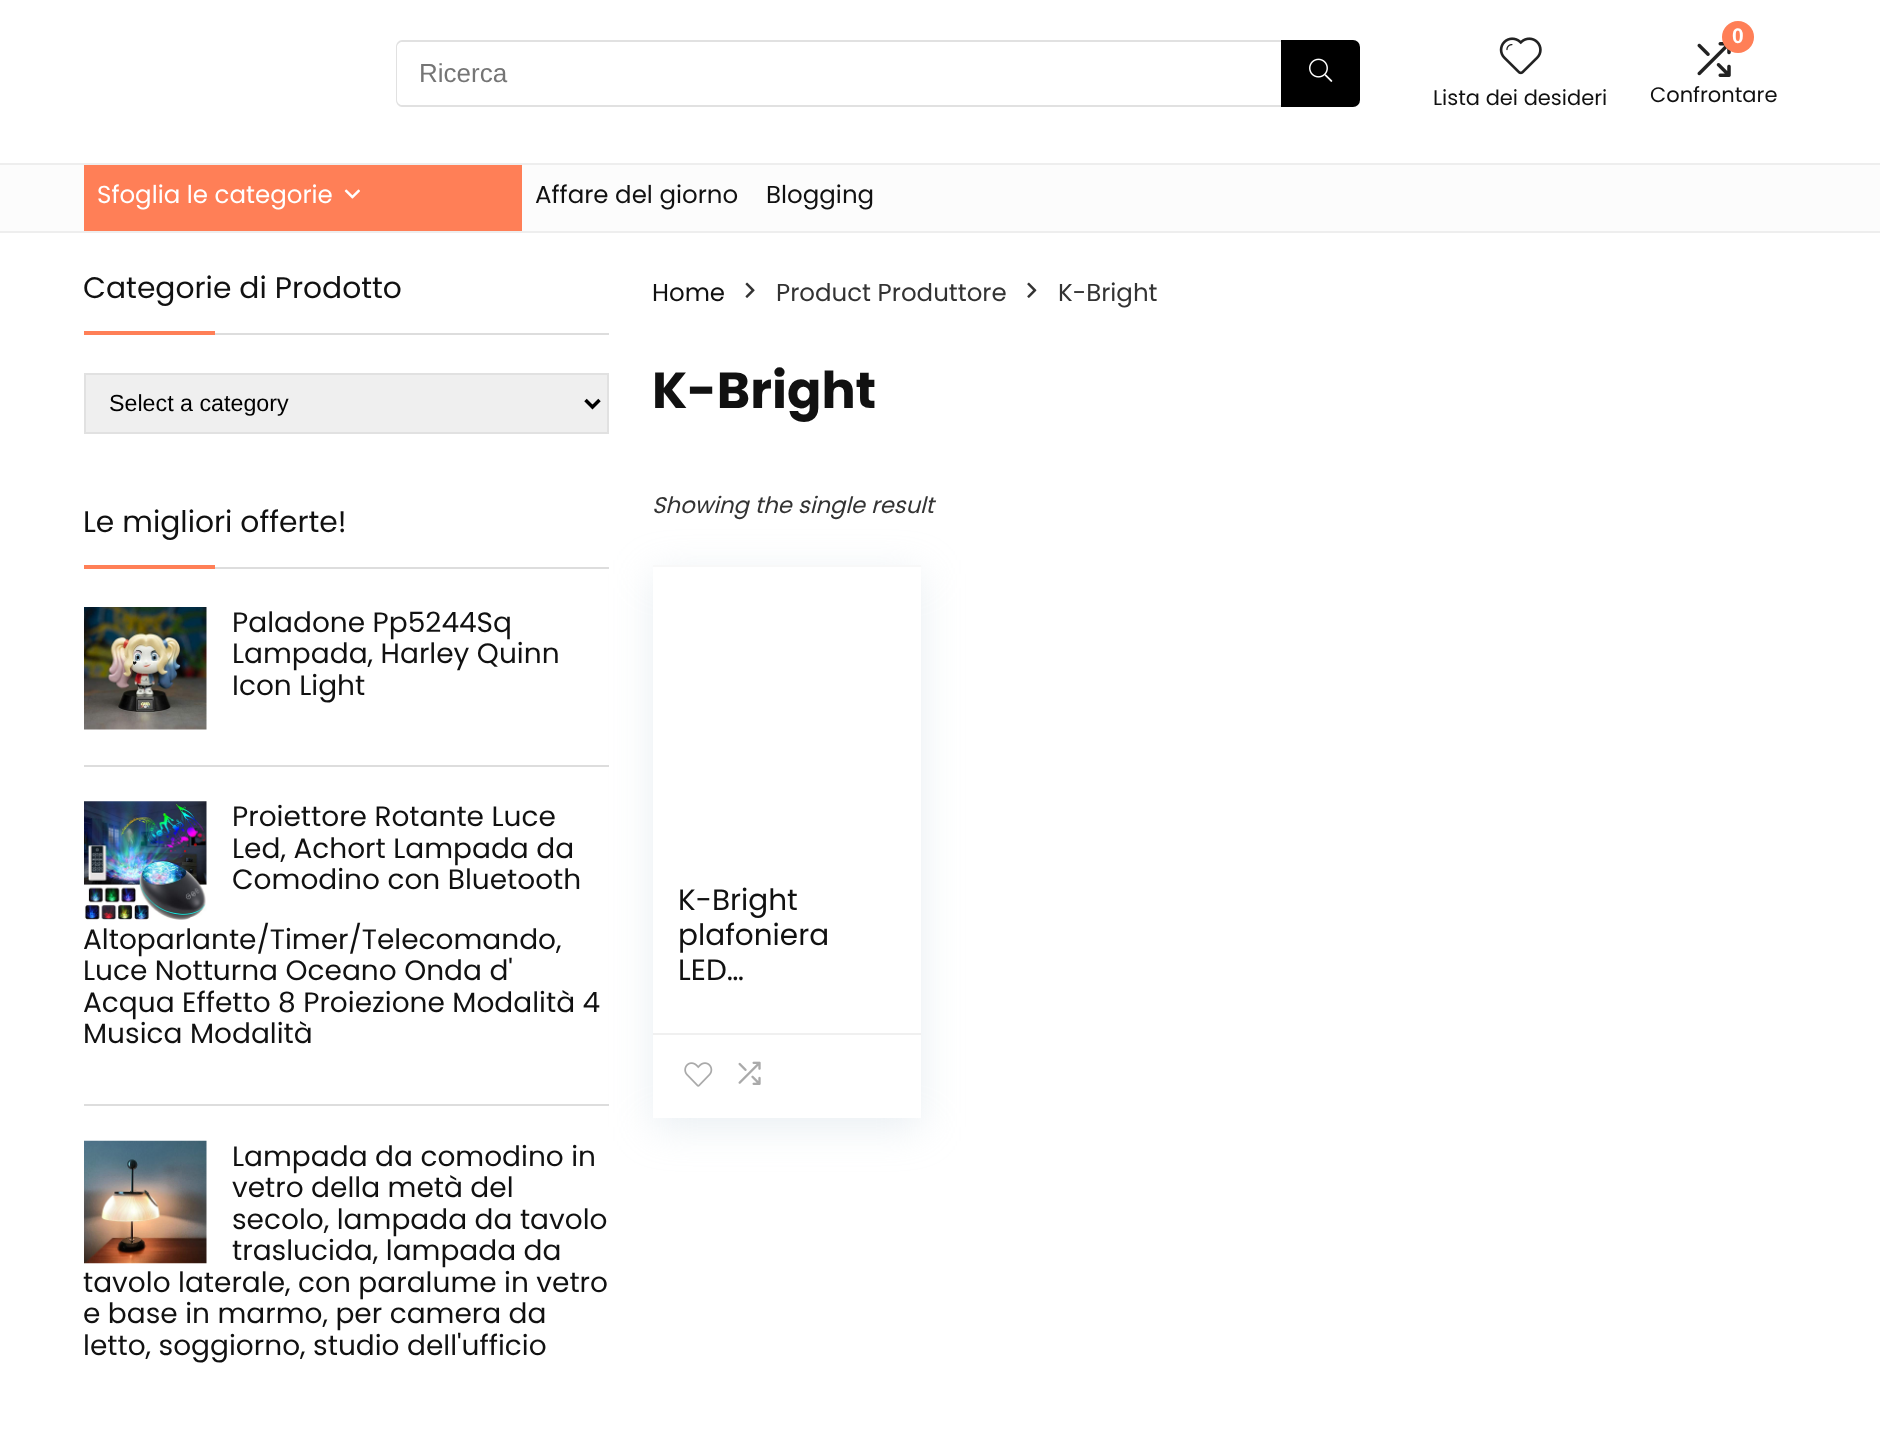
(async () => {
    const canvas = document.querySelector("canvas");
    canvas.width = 1880;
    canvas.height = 1438;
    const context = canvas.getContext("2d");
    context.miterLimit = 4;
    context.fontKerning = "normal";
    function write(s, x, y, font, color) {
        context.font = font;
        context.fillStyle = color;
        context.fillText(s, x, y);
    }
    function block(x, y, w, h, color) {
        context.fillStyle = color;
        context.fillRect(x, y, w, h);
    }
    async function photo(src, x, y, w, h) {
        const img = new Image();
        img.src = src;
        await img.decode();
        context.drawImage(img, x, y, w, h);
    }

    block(0, 0, 1880, 1438, "rgb(255, 255, 255)");
    context.fillStyle = "rgb(225, 225, 225)";
    context.beginPath();
    context.moveTo(402, 40);
    context.lineTo(1281, 40);
    context.lineTo(1281, 107);
    context.lineTo(402, 107);
    context.bezierCurveTo(399, 107, 396, 104, 396, 100);
    context.lineTo(396, 47);
    context.bezierCurveTo(396, 43, 399, 40, 402, 40);
    context.closePath();
    context.moveTo(402, 42);
    context.lineTo(1281, 42);
    context.lineTo(1281, 105);
    context.lineTo(402, 105);
    context.bezierCurveTo(400, 105, 397, 103, 397, 100);
    context.lineTo(397, 47);
    context.bezierCurveTo(397, 44, 400, 42, 402, 42);
    context.closePath();
    context.fill("evenodd");
    write("Ricerca", 419, 82, "26px Liberation Sans", "rgb(117, 117, 117)");
    context.fillStyle = "rgb(0, 0, 0)";
    context.beginPath();
    context.roundRect(1281, 40, 79, 67, [0, 7, 7, 0]);
    context.fill();
    await photo("media/1.png", 1309, 58, 24, 24);
    await photo("media/2.png", 1499, 37, 43, 38);
    write("Lista dei desideri", 1433, 105, "21px Poppins", "rgb(17, 17, 17)");
    await photo("media/3.png", 1697, 42, 34, 35);
    context.fillStyle = "rgb(255, 127, 87)";
    context.beginPath();
    context.arc(1738, 37, 16, 0, Math.PI * 2);
    context.fill();
    write("0", 1732, 43, "bold 21px Liberation Sans", "rgb(255, 255, 255)");
    write("Confrontare", 1650, 102, "21px Poppins", "rgb(17, 17, 17)");
    block(0, 165, 1880, 66, "rgb(252, 252, 252)");
    block(0, 163, 1880, 2, "rgb(238, 238, 238)");
    block(0, 231, 1880, 2, "rgb(238, 238, 238)");
    block(84, 165, 438, 66, "rgb(255, 127, 87)");
    write("Sfoglia le categorie", 97, 203, "24.5px Poppins", "rgb(255, 255, 255)");
    await photo("media/4.png", 344, 189, 16, 10);
    write("Affare del giorno", 535, 203, "24.5px Poppins", "rgb(17, 17, 17)");
    write("Blogging", 766, 203, "24.5px Poppins", "rgb(17, 17, 17)");
    block(215, 333, 394, 2, "rgb(221, 221, 221)");
    write("Categorie di Prodotto", 83, 298, "29.75px Poppins", "rgb(17, 17, 17)");
    block(84, 331, 131, 4, "rgb(255, 127, 87)");
    context.fillStyle = "rgb(239, 239, 239)";
    context.beginPath();
    context.rect(85, 374, 523, 59);
    context.fill();
    context.strokeStyle = "rgb(225, 225, 225)";
    context.lineWidth = 2;
    context.stroke();
    context.beginPath();
    context.moveTo(585.5, 400);
    context.lineTo(592.5, 407);
    context.lineTo(599.5, 400);
    context.strokeStyle = "rgb(0, 0, 0)";
    context.lineWidth = 3.5;
    context.stroke();
    write("Select a category", 109, 411, "23.25px Liberation Sans", "rgb(0, 0, 0)");
    block(215, 567, 394, 2, "rgb(221, 221, 221)");
    write("Le migliori offerte!", 83, 532, "29.75px Poppins", "rgb(17, 17, 17)");
    block(84, 565, 131, 4, "rgb(255, 127, 87)");
    block(84, 765, 525, 2, "rgb(221, 221, 221)");
    await photo("media/5.png", 84, 607, 123, 123);
    write("Paladone Pp5244Sq", 232, 632, "28px Poppins", "rgb(17, 17, 17)");
    write("Lampada, Harley Quinn", 232, 663, "28px Poppins", "rgb(17, 17, 17)");
    write("Icon Light", 232, 695, "28px Poppins", "rgb(17, 17, 17)");
    block(84, 1104, 525, 2, "rgb(221, 221, 221)");
    await photo("media/6.png", 84, 801, 123, 119);
    write("Proiettore Rotante Luce", 232, 826, "28px Poppins", "rgb(17, 17, 17)");
    write("Led, Achort Lampada da", 232, 858, "28px Poppins", "rgb(17, 17, 17)");
    write("Comodino con Bluetooth", 232, 889, "28px Poppins", "rgb(17, 17, 17)");
    write("Altoparlante/Timer/Telecomando,", 83, 949, "28px Poppins", "rgb(17, 17, 17)");
    write("Luce Notturna Oceano Onda d'", 83, 980, "28px Poppins", "rgb(17, 17, 17)");
    write("Acqua Effetto 8 Proiezione Modalità 4", 83, 1012, "28px Poppins", "rgb(17, 17, 17)");
    write("Musica Modalità", 83, 1043, "28px Poppins", "rgb(17, 17, 17)");
    await photo("media/7.png", 84, 1140, 123, 124);
    write("Lampada da comodino in", 232, 1166, "28px Poppins", "rgb(17, 17, 17)");
    write("vetro della metà del", 232, 1197, "28px Poppins", "rgb(17, 17, 17)");
    write("secolo, lampada da tavolo", 232, 1229, "28px Poppins", "rgb(17, 17, 17)");
    write("traslucida, lampada da", 232, 1260, "28px Poppins", "rgb(17, 17, 17)");
    write("tavolo laterale, con paralume in vetro", 83, 1292, "28px Poppins", "rgb(17, 17, 17)");
    write("e base in marmo, per camera da", 83, 1323, "28px Poppins", "rgb(17, 17, 17)");
    write("letto, soggiorno, studio dell'ufficio", 83, 1355, "28px Poppins", "rgb(17, 17, 17)");
    write("Home", 652, 301, "24.5px Poppins", "rgb(17, 17, 17)");
    await photo("media/8.png", 745, 282, 10, 16);
    write("Product Produttore", 776, 301, "24.5px Poppins", "rgb(51, 51, 51)");
    await photo("media/9.png", 1027, 282, 10, 16);
    write("K-Bright", 1058, 301, "24.5px Poppins", "rgb(51, 51, 51)");
    write("K-Bright", 652, 408, "bold 50.75px Poppins", "rgb(17, 17, 17)");
    write("Showing the single result", 652, 513, "italic 22.75px Poppins", "rgb(51, 51, 51)");
    context.fillStyle = "rgba(188, 207, 219, 0.35)";
    context.filter = "blur(20px)";
    context.beginPath();
    context.rect(653, 574, 268, 553);
    context.fill();
    context.filter = "none";
    block(653, 567, 268, 551, "rgb(255, 255, 255)");
    block(653, 565, 268, 2, "rgb(248, 248, 248)");
    write("K-Bright", 678, 910, "29.5px Poppins", "rgb(17, 17, 17)");
    write("plafoniera", 678, 945, "29.5px Poppins", "rgb(17, 17, 17)");
    write("LED…", 678, 980, "29.5px Poppins", "rgb(17, 17, 17)");
    block(653, 1033, 268, 2, "rgb(240, 240, 240)");
    await photo("media/10.png", 684, 1062, 29, 25);
    await photo("media/11.png", 738, 1061, 23, 24);
})();
